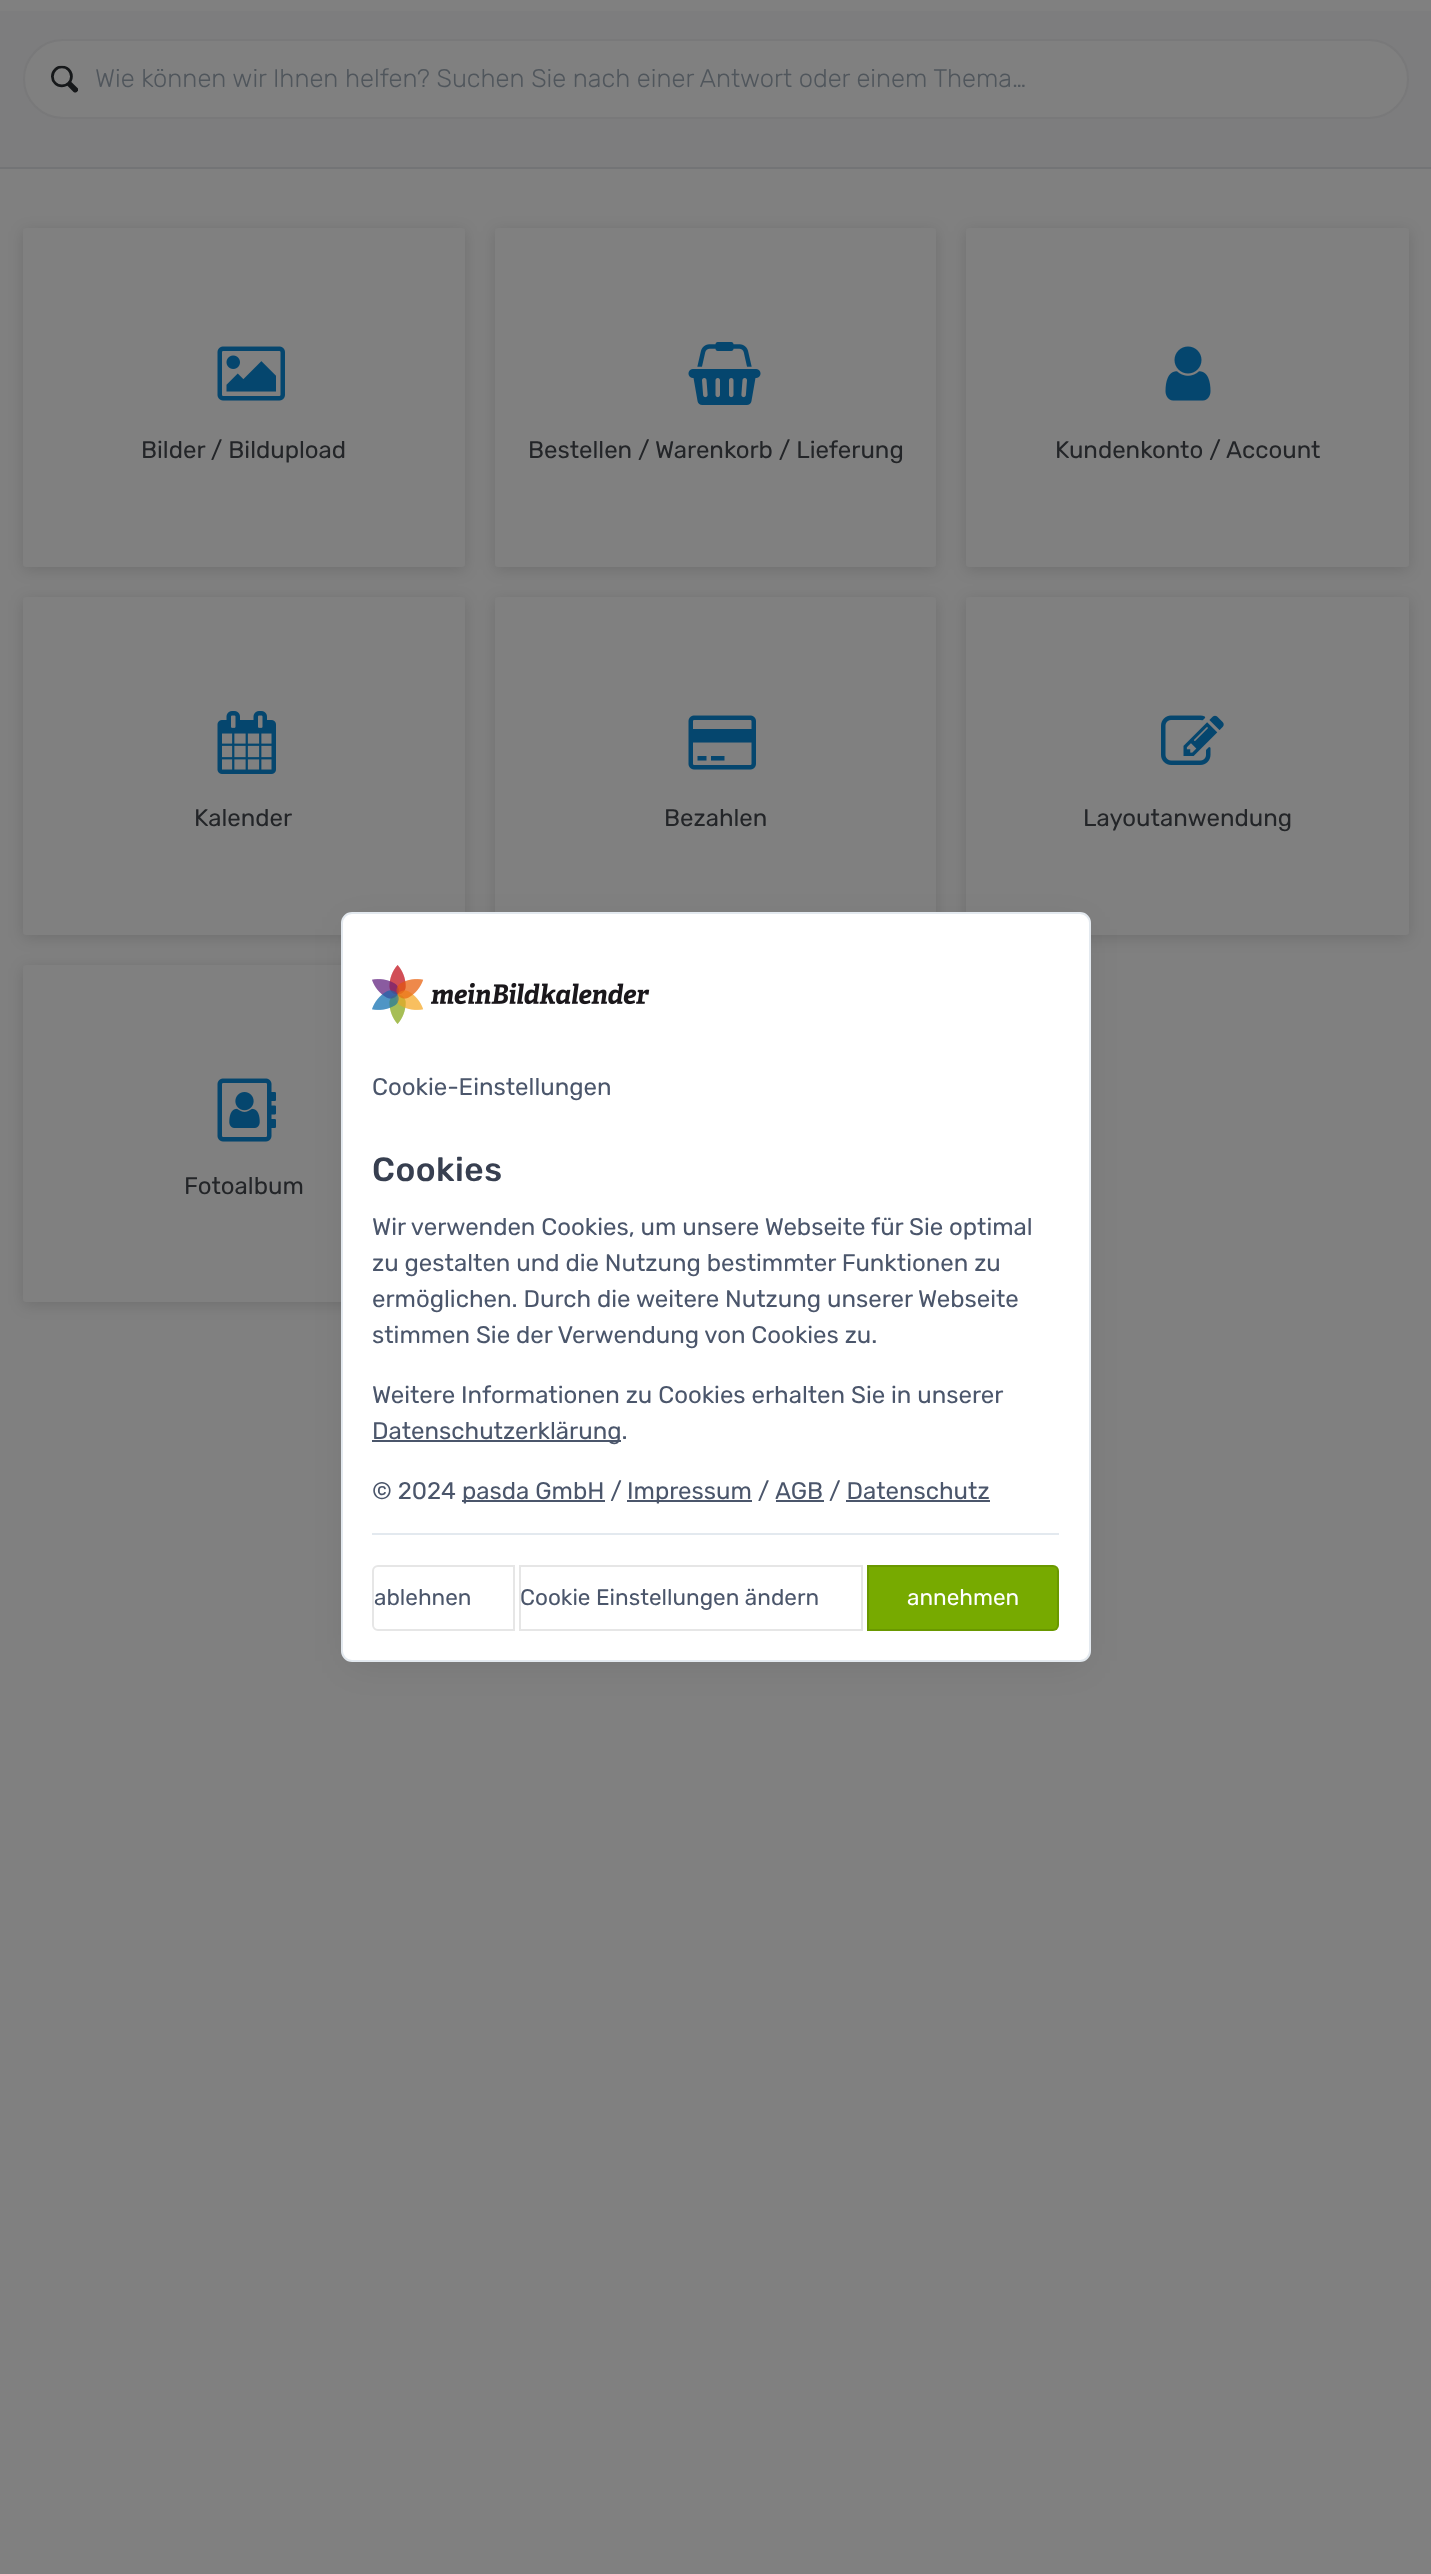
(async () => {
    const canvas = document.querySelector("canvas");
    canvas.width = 1431;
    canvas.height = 2574;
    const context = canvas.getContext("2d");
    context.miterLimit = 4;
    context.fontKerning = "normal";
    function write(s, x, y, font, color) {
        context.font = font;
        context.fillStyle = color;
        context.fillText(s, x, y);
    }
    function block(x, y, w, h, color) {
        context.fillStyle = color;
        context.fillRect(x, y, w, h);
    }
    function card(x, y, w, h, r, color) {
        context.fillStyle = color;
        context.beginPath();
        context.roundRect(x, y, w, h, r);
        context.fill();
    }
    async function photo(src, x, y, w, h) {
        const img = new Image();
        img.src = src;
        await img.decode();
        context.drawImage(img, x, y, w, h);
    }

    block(0, 0, 1431, 2574, "rgb(128, 128, 128)");
    block(0, 11, 1431, 156, "rgb(125, 125, 126)");
    block(0, 167, 1431, 2, "rgb(115, 116, 118)");
    context.fillStyle = "rgb(128, 128, 128)";
    context.beginPath();
    context.roundRect(24, 40, 1384, 78, 39);
    context.fill();
    context.strokeStyle = "rgb(121, 121, 122)";
    context.lineWidth = 2;
    context.stroke();
    await photo("media/1.png", 51, 65, 27, 28);
    write("Wie können wir Ihnen helfen? Suchen Sie nach einer Antwort oder einem Thema…", 95, 87, "300 25.5px Rubik", "rgb(80, 86, 92)");
    context.fillStyle = "rgba(0, 0, 0, 0.13)";
    context.filter = "blur(7.5px)";
    context.beginPath();
    context.roundRect(23, 231, 442, 339, 3);
    context.fill();
    context.filter = "none";
    card(23, 228, 442, 339, 3, "rgb(128, 128, 128)");
    await photo("media/2.png", 217, 346, 68, 55);
    write("Bilder / Bildupload", 141, 458, "24px Rubik", "rgb(35, 37, 40)");
    context.fillStyle = "rgba(0, 0, 0, 0.13)";
    context.filter = "blur(7.5px)";
    context.beginPath();
    context.roundRect(495, 231, 441, 339, 3);
    context.fill();
    context.filter = "none";
    card(495, 228, 441, 339, 3, "rgb(128, 128, 128)");
    await photo("media/3.png", 688, 342, 73, 63);
    write("Bestellen / Warenkorb / Lieferung", 528, 458, "24px Rubik", "rgb(35, 37, 40)");
    context.fillStyle = "rgba(0, 0, 0, 0.13)";
    context.filter = "blur(7.5px)";
    context.beginPath();
    context.roundRect(966, 231, 443, 339, 3);
    context.fill();
    context.filter = "none";
    card(966, 228, 443, 339, 3, "rgb(128, 128, 128)");
    await photo("media/4.png", 1165, 346, 46, 55);
    write("Kundenkonto / Account", 1055, 458, "24px Rubik", "rgb(35, 37, 40)");
    context.fillStyle = "rgba(0, 0, 0, 0.13)";
    context.filter = "blur(7.5px)";
    context.beginPath();
    context.roundRect(23, 600, 442, 338, 3);
    context.fill();
    context.filter = "none";
    card(23, 597, 442, 338, 3, "rgb(128, 128, 128)");
    await photo("media/5.png", 217, 711, 59, 63);
    write("Kalender", 194, 826, "24px Rubik", "rgb(35, 37, 40)");
    context.fillStyle = "rgba(0, 0, 0, 0.13)";
    context.filter = "blur(7.5px)";
    context.beginPath();
    context.roundRect(495, 600, 441, 338, 3);
    context.fill();
    context.filter = "none";
    card(495, 597, 441, 338, 3, "rgb(128, 128, 128)");
    await photo("media/6.png", 688, 715, 68, 55);
    write("Bezahlen", 664, 826, "24px Rubik", "rgb(35, 37, 40)");
    context.fillStyle = "rgba(0, 0, 0, 0.13)";
    context.filter = "blur(7.5px)";
    context.beginPath();
    context.roundRect(966, 600, 443, 338, 3);
    context.fill();
    context.filter = "none";
    card(966, 597, 443, 338, 3, "rgb(128, 128, 128)");
    await photo("media/7.png", 1161, 715, 63, 50);
    write("Layoutanwendung", 1083, 826, "24px Rubik", "rgb(35, 37, 40)");
    context.fillStyle = "rgba(0, 0, 0, 0.13)";
    context.filter = "blur(7.5px)";
    context.beginPath();
    context.roundRect(23, 968, 442, 337, 3);
    context.fill();
    context.filter = "none";
    card(23, 965, 442, 337, 3, "rgb(128, 128, 128)");
    await photo("media/8.png", 217, 1078, 59, 64);
    write("Fotoalbum", 184, 1194, "24px Rubik", "rgb(35, 37, 40)");
    context.fillStyle = "rgba(0, 0, 0, 0.1)";
    context.filter = "blur(18.5px)";
    context.beginPath();
    context.roundRect(350, 929, 732, 732, 1.5);
    context.fill();
    context.filter = "none";
    context.fillStyle = "rgb(255, 255, 255)";
    context.beginPath();
    context.roundRect(342, 913, 748, 748, 10);
    context.fill();
    context.strokeStyle = "rgb(227, 233, 239)";
    context.stroke();
    await photo("media/9.png", 372, 965, 278, 59);
    write("Cookie-Einstellungen", 372, 1095, "24px Rubik", "rgb(75, 86, 107)");
    context.letterSpacing = "0.5px";
    write("Cookies", 372, 1181, "500 33.5px Rubik", "rgb(55, 63, 80)");
    context.letterSpacing = "0px";
    write("Wir verwenden Cookies, um unsere Webseite für Sie optimal", 372, 1235, "24px Rubik", "rgb(75, 86, 107)");
    write("zu gestalten und die Nutzung bestimmter Funktionen zu", 372, 1271, "24px Rubik", "rgb(75, 86, 107)");
    write("ermöglichen. Durch die weitere Nutzung unserer Webseite", 372, 1307, "24px Rubik", "rgb(75, 86, 107)");
    write("stimmen Sie der Verwendung von Cookies zu.", 372, 1343, "24px Rubik", "rgb(75, 86, 107)");
    write("Weitere Informationen zu Cookies erhalten Sie in unserer", 372, 1403, "24px Rubik", "rgb(75, 86, 107)");
    block(372, 1440, 249, 2, "rgb(75, 86, 107)");
    write("Datenschutzerklärung.", 372, 1439, "24px Rubik", "rgb(75, 86, 107)");
    write("© 2024", 372, 1499, "24px Rubik", "rgb(75, 86, 107)");
    block(462, 1500, 143, 2, "rgb(75, 86, 107)");
    write("pasda GmbH /", 462, 1499, "24px Rubik", "rgb(75, 86, 107)");
    block(627, 1500, 125, 2, "rgb(75, 86, 107)");
    write("Impressum /", 627, 1499, "24px Rubik", "rgb(75, 86, 107)");
    block(776, 1500, 48, 2, "rgb(75, 86, 107)");
    write("AGB / Datenschutz", 775, 1499, "24px Rubik", "rgb(75, 86, 107)");
    block(846, 1500, 144, 2, "rgb(75, 86, 107)");
    block(372, 1533, 687, 2, "rgb(227, 233, 239)");
    context.beginPath();
    context.roundRect(373, 1566, 141, 64, [5, 0, 0, 5]);
    context.strokeStyle = "rgb(230, 230, 230)";
    context.stroke();
    write("ablehnen", 374, 1605, "22.5px Rubik", "rgb(75, 86, 107)");
    context.strokeRect(520, 1566, 342, 64);
    write("Cookie Einstellungen ändern", 520, 1605, "22.5px Rubik", "rgb(75, 86, 107)");
    context.fillStyle = "rgb(119, 170, 0)";
    context.beginPath();
    context.roundRect(867, 1565, 192, 66, [0, 6, 6, 0]);
    context.fill();
    context.beginPath();
    context.roundRect(868, 1566, 190, 64, [0, 5, 5, 0]);
    context.strokeStyle = "rgba(0, 0, 0, 0.1)";
    context.stroke();
    write("annehmen", 907, 1605, "22.5px Rubik", "rgb(255, 255, 255)");
})();
